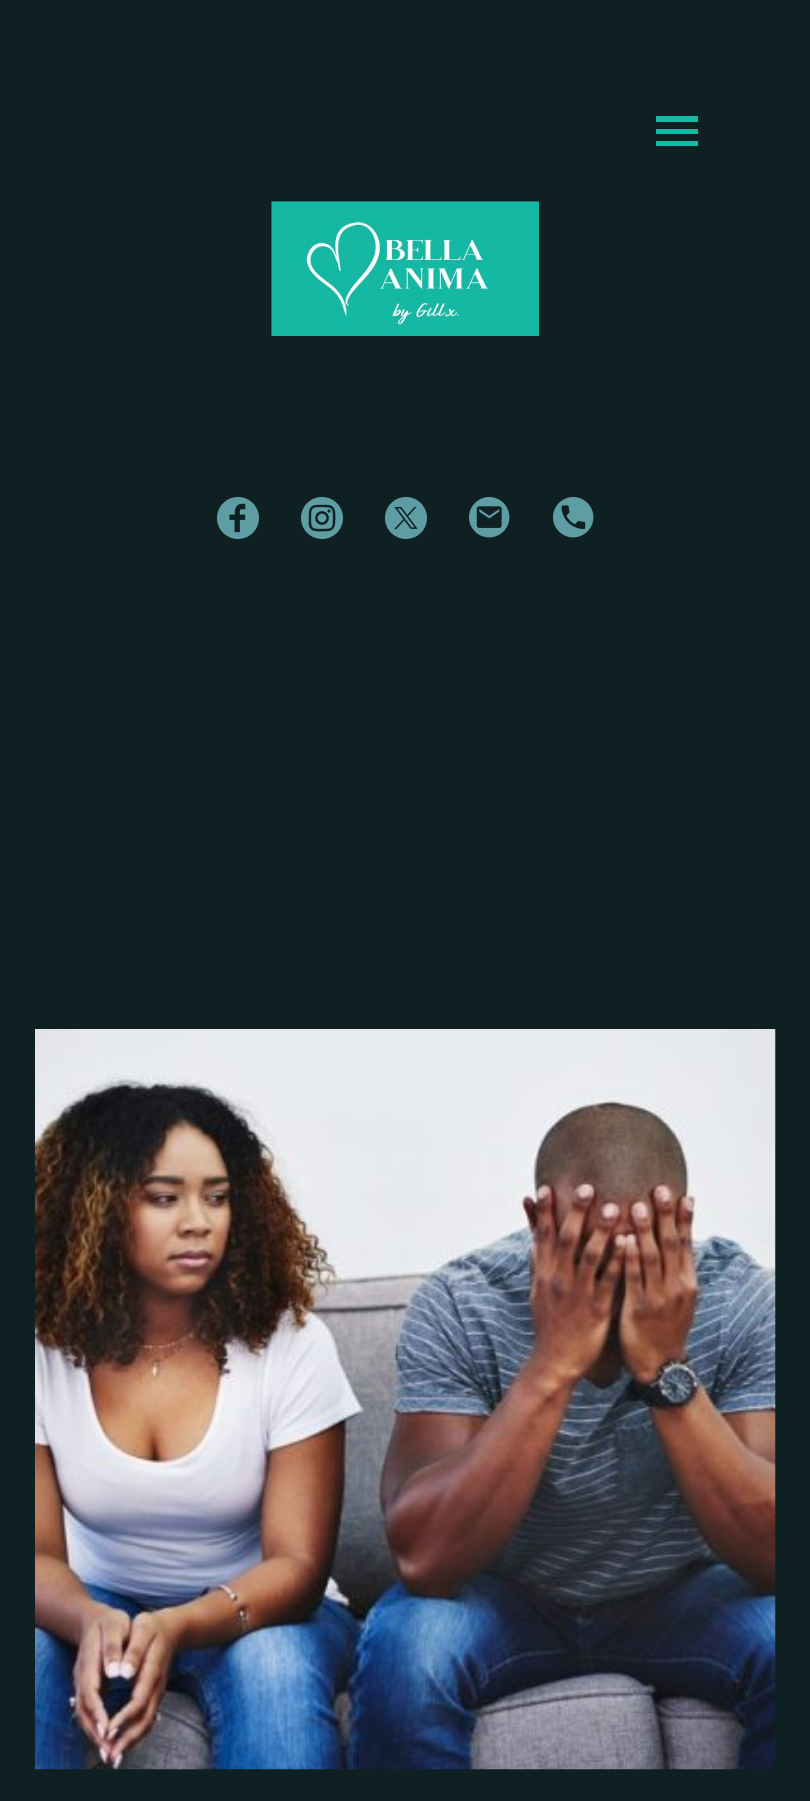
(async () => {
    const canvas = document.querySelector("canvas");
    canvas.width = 810;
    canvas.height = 1801;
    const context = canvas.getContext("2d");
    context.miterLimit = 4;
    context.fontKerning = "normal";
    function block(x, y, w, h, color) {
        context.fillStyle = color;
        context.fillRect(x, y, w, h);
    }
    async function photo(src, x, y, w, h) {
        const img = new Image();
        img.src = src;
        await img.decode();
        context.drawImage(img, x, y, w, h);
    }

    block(0, 0, 810, 1801, "rgb(15, 32, 34)");
    block(656, 116, 42, 6, "rgb(20, 185, 163)");
    block(656, 129, 42, 5, "rgb(20, 185, 163)");
    block(656, 141, 42, 5, "rgb(20, 185, 163)");
    await photo("media/1.png", 271, 201, 268, 135);
    await photo("media/2.png", 217, 497, 42, 42);
    await photo("media/3.png", 301, 497, 42, 42);
    await photo("media/4.png", 385, 497, 42, 42);
    await photo("media/5.png", 469, 497, 41, 41);
    await photo("media/6.png", 553, 497, 41, 41);
    await photo("media/7.png", 35, 1029, 741, 741);
})();
